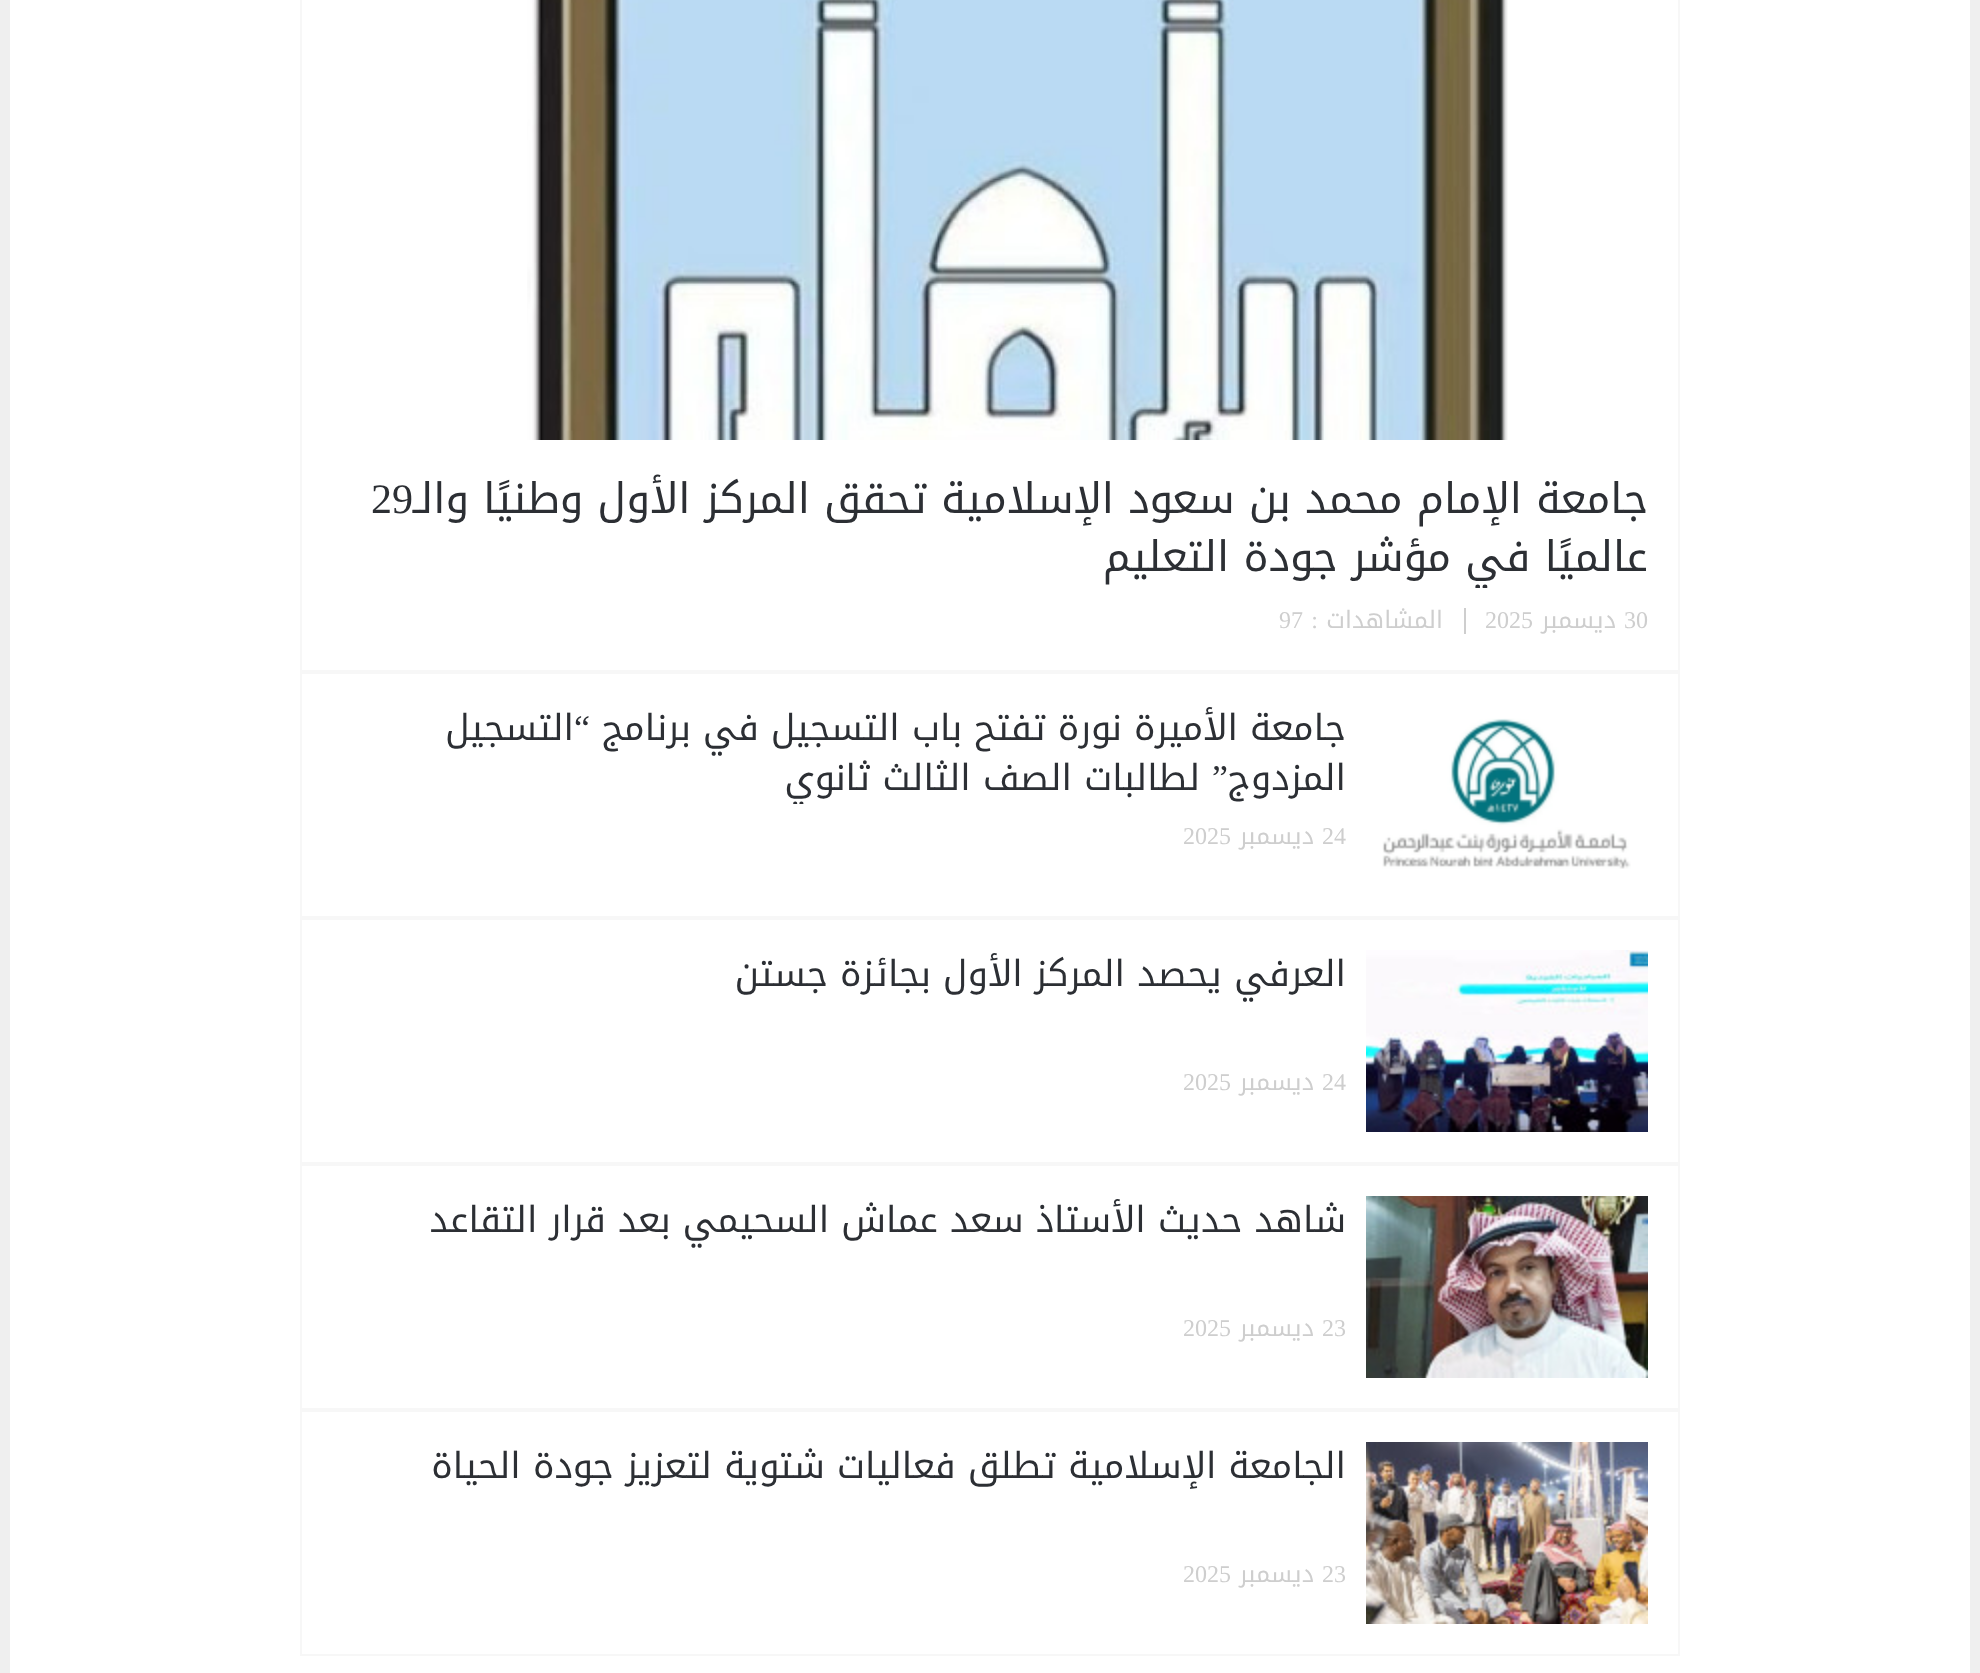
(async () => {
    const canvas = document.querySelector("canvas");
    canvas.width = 1980;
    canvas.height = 1673;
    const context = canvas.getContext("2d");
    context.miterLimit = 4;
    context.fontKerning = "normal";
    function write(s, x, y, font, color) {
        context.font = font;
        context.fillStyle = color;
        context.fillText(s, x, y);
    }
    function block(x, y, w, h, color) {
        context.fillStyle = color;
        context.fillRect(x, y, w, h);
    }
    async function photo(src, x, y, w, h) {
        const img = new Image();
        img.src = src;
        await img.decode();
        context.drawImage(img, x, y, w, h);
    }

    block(0, 0, 1980, 1673, "rgb(239, 239, 239)");
    block(10, 0, 1960, 1673, "rgb(255, 255, 255)");
    context.strokeStyle = "rgb(247, 247, 247)";
    context.lineWidth = 2;
    context.strokeRect(301, -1, 1378, 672);
    await photo("media/1.png", 527, 0, 981, 440);
    context.direction = "rtl";
    write("جامعة الإمام محمد بن سعود الإسلامية تحقق المركز الأول وطنيًا والـ", 1648, 513, "42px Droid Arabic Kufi", "rgb(44, 47, 52)");
    context.direction = "ltr";
    write("29", 371, 513, "42px Liberation Serif", "rgb(44, 47, 52)");
    context.save();
    context.beginPath();
    context.rect(332, 470, 1316, 118);
    context.clip();
    context.direction = "rtl";
    write("عالميًا في مؤشر جودة التعليم", 1648, 571, "42px Droid Arabic Kufi", "rgb(44, 47, 52)");
    context.restore();
    block(1464, 608, 2, 26, "rgb(206, 206, 206)");
    write("30", 1624, 628, "24px Liberation Serif", "rgb(206, 206, 206)");
    context.direction = "rtl";
    write("ديسمبر", 1616, 628, "24px Droid Arabic Kufi", "rgb(206, 206, 206)");
    context.direction = "ltr";
    write("2025", 1485, 628, "24px Liberation Serif", "rgb(206, 206, 206)");
    context.direction = "rtl";
    write("المشاهدات", 1443, 628, "24px Droid Arabic Kufi", "rgb(206, 206, 206)");
    write(":", 1318, 628, "24px Liberation Serif", "rgb(206, 206, 206)");
    context.direction = "ltr";
    write("97", 1279, 628, "24px Liberation Serif", "rgb(206, 206, 206)");
    context.strokeRect(301, 673, 1378, 244);
    await photo("media/2.png", 1382, 718, 249, 151);
    context.direction = "rtl";
    write("جامعة الأميرة نورة تفتح باب التسجيل في برنامج", 1346, 740, "36px Droid Arabic Kufi", "rgb(44, 47, 52)");
    write("“", 590, 740, "36px Liberation Serif", "rgb(44, 47, 52)");
    write("التسجيل", 574, 740, "36px Droid Arabic Kufi", "rgb(44, 47, 52)");
    write("المزدوج", 1346, 790, "36px Droid Arabic Kufi", "rgb(44, 47, 52)");
    write("”", 1228, 790, "36px Liberation Serif", "rgb(44, 47, 52)");
    context.save();
    context.beginPath();
    context.rect(332, 704, 1014, 100);
    context.clip();
    write("لطالبات الصف الثالث ثانوي", 1200, 790, "36px Droid Arabic Kufi", "rgb(44, 47, 52)");
    context.restore();
    context.direction = "ltr";
    write("24", 1322, 844, "24px Liberation Serif", "rgb(206, 206, 206)");
    context.direction = "rtl";
    write("ديسمبر", 1314, 844, "24px Droid Arabic Kufi", "rgb(206, 206, 206)");
    context.direction = "ltr";
    write("2025", 1183, 844, "24px Liberation Serif", "rgb(206, 206, 206)");
    context.strokeRect(301, 919, 1378, 244);
    await photo("media/3.png", 1366, 950, 282, 182);
    context.direction = "rtl";
    write("العرفي يحصد المركز الأول بجائزة جستن", 1346, 986, "36px Droid Arabic Kufi", "rgb(44, 47, 52)");
    context.direction = "ltr";
    write("24", 1322, 1090, "24px Liberation Serif", "rgb(206, 206, 206)");
    context.direction = "rtl";
    write("ديسمبر", 1314, 1090, "24px Droid Arabic Kufi", "rgb(206, 206, 206)");
    context.direction = "ltr";
    write("2025", 1183, 1090, "24px Liberation Serif", "rgb(206, 206, 206)");
    context.strokeRect(301, 1165, 1378, 244);
    await photo("media/4.png", 1366, 1196, 282, 182);
    context.direction = "rtl";
    write("شاهد حديث الأستاذ سعد عماش السحيمي بعد قرار التقاعد", 1346, 1232, "36px Droid Arabic Kufi", "rgb(44, 47, 52)");
    context.direction = "ltr";
    write("23", 1322, 1336, "24px Liberation Serif", "rgb(206, 206, 206)");
    context.direction = "rtl";
    write("ديسمبر", 1314, 1336, "24px Droid Arabic Kufi", "rgb(206, 206, 206)");
    context.direction = "ltr";
    write("2025", 1183, 1336, "24px Liberation Serif", "rgb(206, 206, 206)");
    context.strokeRect(301, 1411, 1378, 244);
    await photo("media/5.png", 1366, 1442, 282, 182);
    context.direction = "rtl";
    write("الجامعة الإسلامية تطلق فعاليات شتوية لتعزيز جودة الحياة", 1346, 1478, "36px Droid Arabic Kufi", "rgb(44, 47, 52)");
    context.direction = "ltr";
    write("23", 1322, 1582, "24px Liberation Serif", "rgb(206, 206, 206)");
    context.direction = "rtl";
    write("ديسمبر", 1314, 1582, "24px Droid Arabic Kufi", "rgb(206, 206, 206)");
    context.direction = "ltr";
    write("2025", 1183, 1582, "24px Liberation Serif", "rgb(206, 206, 206)");
})();
